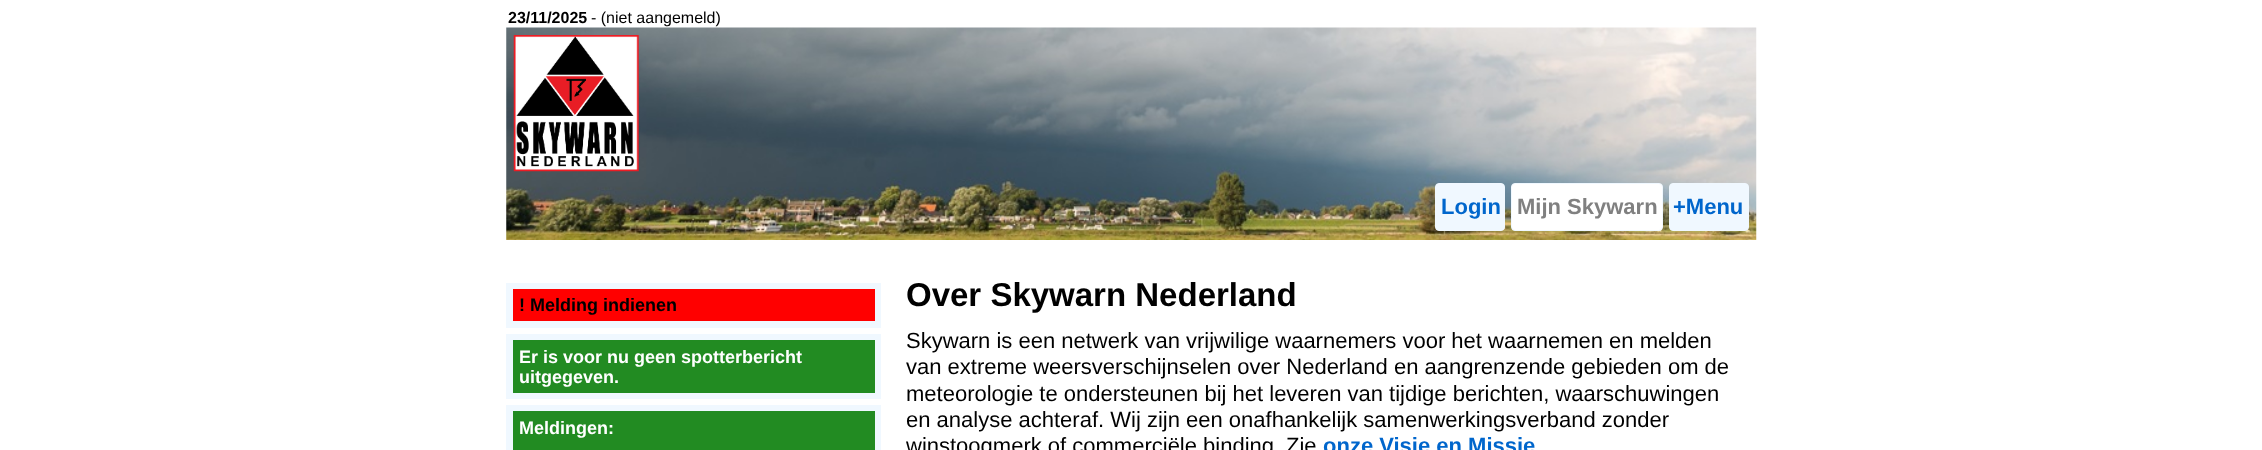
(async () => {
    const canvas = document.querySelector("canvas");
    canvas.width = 2262;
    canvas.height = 450;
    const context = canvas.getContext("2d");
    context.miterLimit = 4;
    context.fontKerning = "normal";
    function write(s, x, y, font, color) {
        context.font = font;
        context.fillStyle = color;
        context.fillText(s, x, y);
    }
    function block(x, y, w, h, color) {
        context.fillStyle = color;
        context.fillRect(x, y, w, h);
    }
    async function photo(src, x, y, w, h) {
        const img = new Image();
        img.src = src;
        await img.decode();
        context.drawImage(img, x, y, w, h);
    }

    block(0, 0, 2262, 450, "rgb(255, 255, 255)");
    write("23/11/2025", 508, 23, "bold 16px Liberation Sans", "rgb(0, 0, 0)");
    write("- (niet aangemeld)", 591, 23, "16px Liberation Sans", "rgb(0, 0, 0)");
    await photo("media/1.png", 506, 27, 1251, 213);
    await photo("media/2.png", 513, 35, 126, 137);
    context.fillStyle = "rgb(240, 248, 255)";
    context.beginPath();
    context.roundRect(1435.5, 183.5, 69, 47, 3.5);
    context.fill();
    context.strokeStyle = "rgb(240, 248, 255)";
    context.stroke();
    write("Login", 1441, 214, "bold 22px Liberation Sans", "rgb(0, 102, 204)");
    context.fillStyle = "rgb(255, 255, 255)";
    context.beginPath();
    context.roundRect(1511.5, 183.5, 151, 47, 3.5);
    context.fill();
    context.stroke();
    write("Mijn Skywarn", 1517, 214, "bold 22px Liberation Sans", "rgb(128, 128, 128)");
    context.fillStyle = "rgb(240, 248, 255)";
    context.beginPath();
    context.roundRect(1669.5, 183.5, 79, 47, 3.5);
    context.fill();
    context.stroke();
    write("+Menu", 1673, 214, "bold 22px Liberation Sans", "rgb(0, 102, 204)");
    block(506, 283, 375, 45, "rgb(240, 248, 255)");
    block(513, 289, 362, 32, "rgb(255, 0, 0)");
    write("! Melding indienen", 519, 311, "bold 18px Liberation Sans", "rgb(0, 0, 0)");
    block(506, 334, 375, 65, "rgb(240, 248, 255)");
    block(513, 340, 362, 53, "rgb(34, 139, 34)");
    write("Er is voor nu geen spotterbericht", 519, 363, "bold 18px Liberation Sans", "rgb(255, 255, 255)");
    write("uitgegeven.", 519, 383, "bold 18px Liberation Sans", "rgb(255, 255, 255)");
    block(506, 405, 375, 45, "rgb(240, 248, 255)");
    block(513, 411, 362, 39, "rgb(34, 139, 34)");
    write("Meldingen:", 519, 434, "bold 18px Liberation Sans", "rgb(255, 255, 255)");
    write("Over Skywarn Nederland", 906, 306, "bold 33px Liberation Sans", "rgb(0, 0, 0)");
    write("Skywarn is een netwerk van vrijwilige waarnemers voor het waarnemen en melden", 906, 348, "22px Liberation Sans", "rgb(0, 0, 0)");
    write("van extreme weersverschijnselen over Nederland en aangrenzende gebieden om de", 906, 374, "22px Liberation Sans", "rgb(0, 0, 0)");
    write("meteorologie te ondersteunen bij het leveren van tijdige berichten, waarschuwingen", 906, 401, "22px Liberation Sans", "rgb(0, 0, 0)");
    write("en analyse achteraf. Wij zijn een onafhankelijk samenwerkingsverband zonder", 906, 427, "22px Liberation Sans", "rgb(0, 0, 0)");
    write("winstoogmerk of commerciële binding", 906, 453, "22px Liberation Sans", "rgb(0, 0, 0)");
    write("Zie", 1286, 453, "22px Liberation Sans", "rgb(0, 0, 0)");
    write("onze Visie en Missie", 1323, 453, "bold 22px Liberation Sans", "rgb(0, 102, 204)");
})();
